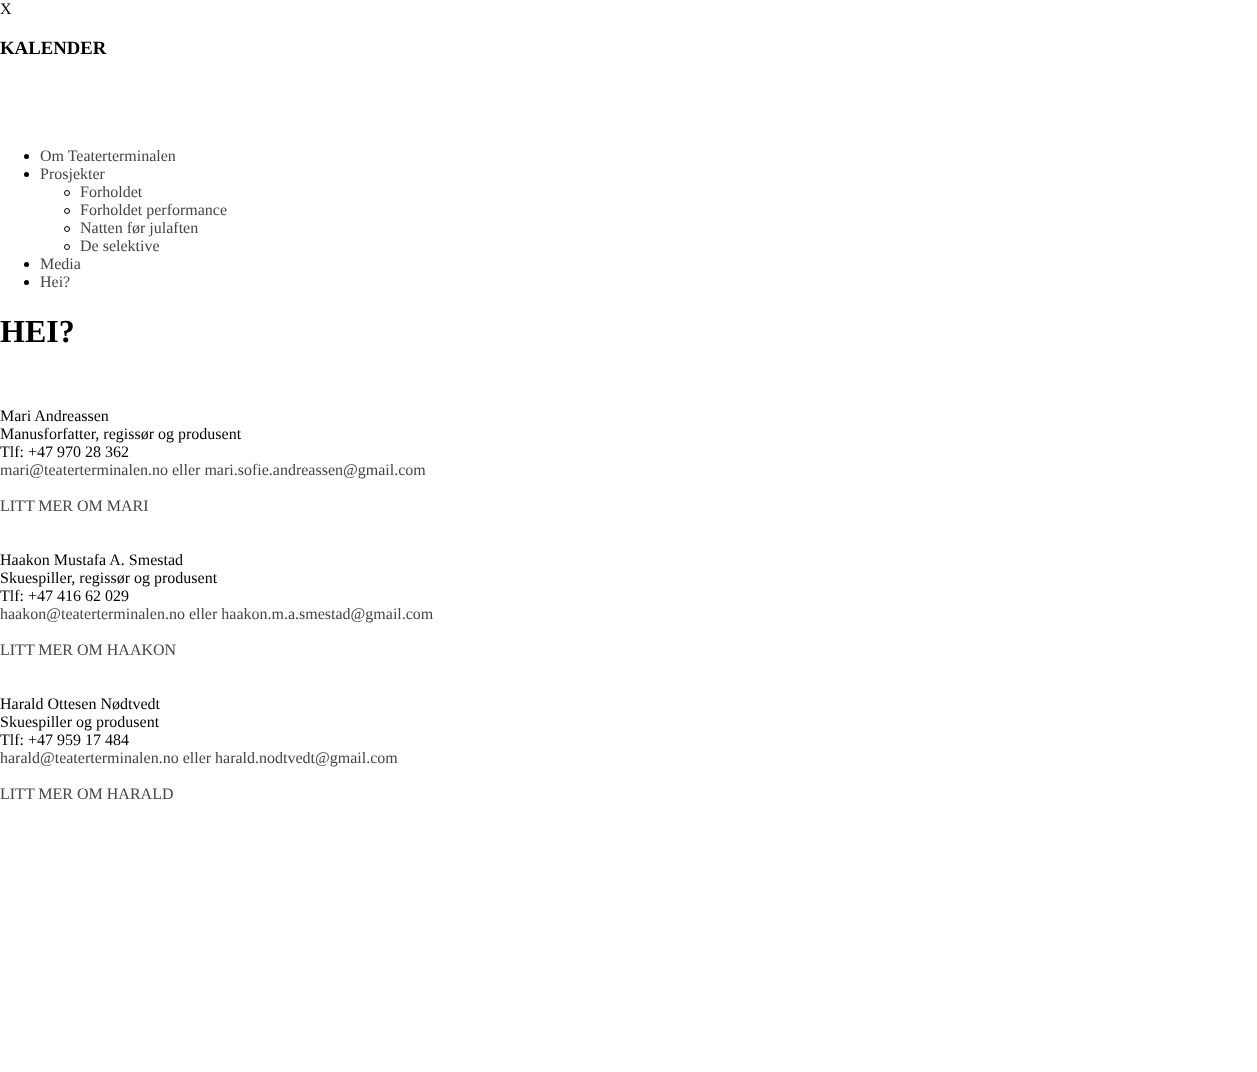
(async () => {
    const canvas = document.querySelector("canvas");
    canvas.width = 1257;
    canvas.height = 1072;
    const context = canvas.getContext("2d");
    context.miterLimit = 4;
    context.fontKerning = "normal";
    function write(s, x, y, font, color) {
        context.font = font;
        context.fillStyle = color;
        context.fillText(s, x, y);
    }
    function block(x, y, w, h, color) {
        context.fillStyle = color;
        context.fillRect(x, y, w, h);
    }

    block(0, 0, 1257, 1072, "rgb(255, 255, 255)");
    write("X", 0, 14, "16px Liberation Serif", "rgb(0, 0, 0)");
    write("KALENDER", 0, 54, "bold 18.75px Liberation Serif", "rgb(0, 0, 0)");
    context.beginPath();
    context.arc(26.5, 156.5, 2.5, 0, Math.PI * 2);
    context.fill();
    write("Om Teaterterminalen", 40, 161, "16px Liberation Serif", "rgb(68, 68, 68)");
    context.fillStyle = "rgb(0, 0, 0)";
    context.beginPath();
    context.arc(26.5, 174.5, 2.5, 0, Math.PI * 2);
    context.fill();
    write("Prosjekter", 40, 179, "16px Liberation Serif", "rgb(68, 68, 68)");
    context.beginPath();
    context.arc(67, 193, 2.5, 0, Math.PI * 2);
    context.strokeStyle = "rgb(0, 0, 0)";
    context.stroke();
    write("Forholdet", 80, 197, "16px Liberation Serif", "rgb(68, 68, 68)");
    context.beginPath();
    context.arc(67, 211, 2.5, 0, Math.PI * 2);
    context.stroke();
    write("Forholdet performance", 80, 215, "16px Liberation Serif", "rgb(68, 68, 68)");
    context.beginPath();
    context.arc(67, 229, 2.5, 0, Math.PI * 2);
    context.stroke();
    write("Natten før julaften", 80, 233, "16px Liberation Serif", "rgb(68, 68, 68)");
    context.beginPath();
    context.arc(67, 247, 2.5, 0, Math.PI * 2);
    context.stroke();
    write("De selektive", 80, 251, "16px Liberation Serif", "rgb(68, 68, 68)");
    context.fillStyle = "rgb(0, 0, 0)";
    context.beginPath();
    context.arc(26.5, 264.5, 2.5, 0, Math.PI * 2);
    context.fill();
    write("Media", 40, 269, "16px Liberation Serif", "rgb(68, 68, 68)");
    context.fillStyle = "rgb(0, 0, 0)";
    context.beginPath();
    context.arc(26.5, 282.5, 2.5, 0, Math.PI * 2);
    context.fill();
    write("Hei?", 40, 287, "16px Liberation Serif", "rgb(68, 68, 68)");
    write("HEI?", 0, 342, "bold 32px Liberation Serif", "rgb(0, 0, 0)");
    write("Mari Andreassen", 0, 421, "16px Liberation Serif", "rgb(0, 0, 0)");
    write("Manusforfatter, regissør og produsent", 0, 439, "16px Liberation Serif", "rgb(0, 0, 0)");
    write("Tlf: +47 970 28 362", 0, 457, "16px Liberation Serif", "rgb(0, 0, 0)");
    write("mari@teaterterminalen.no eller mari.sofie.andreassen@gmail.com", 0, 475, "16px Liberation Serif", "rgb(68, 68, 68)");
    write("LITT MER OM MARI", 0, 511, "16px Liberation Serif", "rgb(68, 68, 68)");
    write("Haakon Mustafa A. Smestad", 0, 565, "16px Liberation Serif", "rgb(0, 0, 0)");
    write("Skuespiller, regissør og produsent", 0, 583, "16px Liberation Serif", "rgb(0, 0, 0)");
    write("Tlf: +47 416 62 029", 0, 601, "16px Liberation Serif", "rgb(0, 0, 0)");
    write("haakon@teaterterminalen.no eller haakon.m.a.smestad@gmail.com", 0, 619, "16px Liberation Serif", "rgb(68, 68, 68)");
    write("LITT MER OM HAAKON", 0, 655, "16px Liberation Serif", "rgb(68, 68, 68)");
    write("Harald Ottesen Nødtvedt", 0, 709, "16px Liberation Serif", "rgb(0, 0, 0)");
    write("Skuespiller og produsent", 0, 727, "16px Liberation Serif", "rgb(0, 0, 0)");
    write("Tlf: +47 959 17 484", 0, 745, "16px Liberation Serif", "rgb(0, 0, 0)");
    write("harald@teaterterminalen.no eller harald.nodtvedt@gmail.com", 0, 763, "16px Liberation Serif", "rgb(68, 68, 68)");
    write("LITT MER OM HARALD", 0, 799, "16px Liberation Serif", "rgb(68, 68, 68)");
})();
